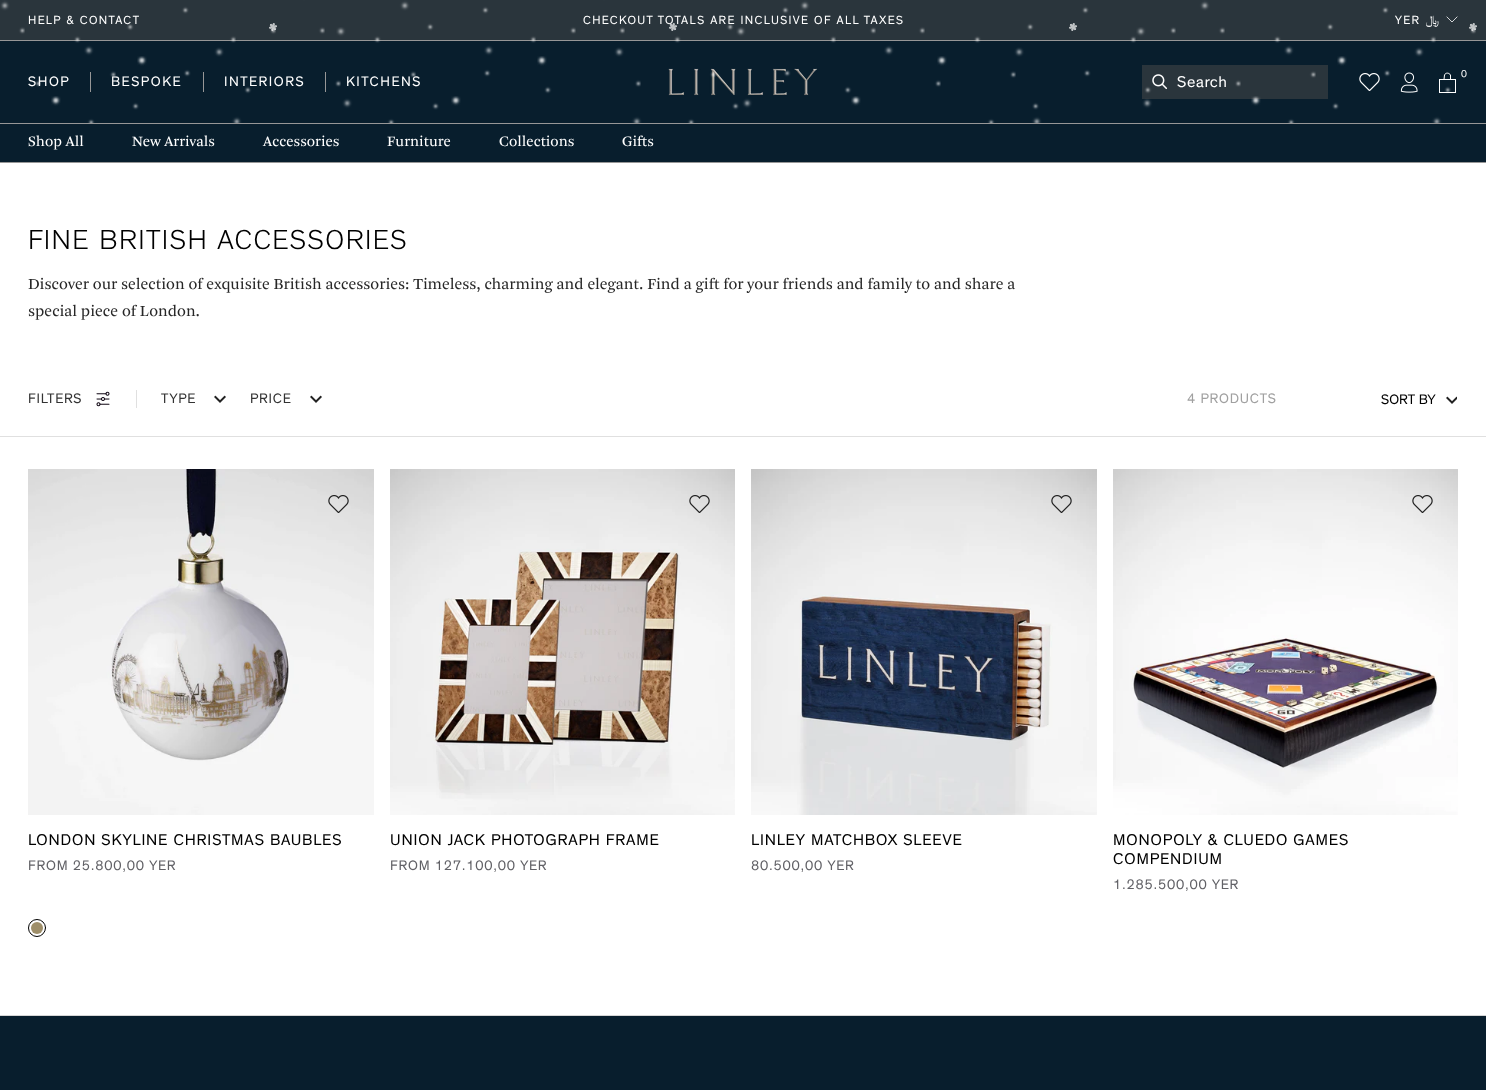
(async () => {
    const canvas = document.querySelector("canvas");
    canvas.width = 1486;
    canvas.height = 1090;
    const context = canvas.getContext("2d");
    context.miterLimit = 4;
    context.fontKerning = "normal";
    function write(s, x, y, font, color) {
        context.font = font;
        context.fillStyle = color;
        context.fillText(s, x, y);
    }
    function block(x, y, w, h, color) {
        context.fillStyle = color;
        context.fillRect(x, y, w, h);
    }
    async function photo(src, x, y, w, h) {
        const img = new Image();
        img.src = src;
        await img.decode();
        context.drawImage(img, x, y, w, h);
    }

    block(0, 0, 1486, 1090, "rgb(255, 255, 255)");
    block(0, 41, 1486, 82, "rgb(8, 30, 45)");
    block(0, 0, 1486, 40, "rgb(42, 53, 60)");
    block(0, 40, 1486, 1, "rgb(151, 151, 151)");
    context.letterSpacing = "1.35px";
    write("HELP & CONTACT", 28, 24, "12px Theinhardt", "rgb(255, 255, 255)");
    write("CHECKOUT TOTALS ARE INCLUSIVE OF ALL TAXES", 583, 24, "12px Theinhardt", "rgb(255, 255, 255)");
    await photo("media/2.png", 668, 68, 150, 28);
    await photo("media/3.png", 1359, 73, 21, 18);
    await photo("media/4.png", 1400, 72, 18, 21);
    context.beginPath();
    context.moveTo(1444, 79.5);
    context.lineTo(1444.5, 75);
    context.bezierCurveTo(1445.5, 72.5, 1449, 72.5, 1450.5, 75);
    context.lineTo(1450.5, 79.5);
    context.strokeStyle = "rgb(255, 255, 255)";
    context.lineCap = "round";
    context.lineJoin = "round";
    context.stroke();
    context.lineJoin = "miter";
    context.strokeRect(1439.5, 79.5, 16, 13);
    context.letterSpacing = "0px";
    write("0", 1461, 77, "10px Theinhardt", "rgb(255, 255, 255)");
    block(90, 72, 1, 20, "rgb(151, 151, 151)");
    context.letterSpacing = "1.5px";
    write("SHOP", 28, 86, "14px Theinhardt", "rgb(255, 255, 255)");
    block(203, 72, 1, 20, "rgb(151, 151, 151)");
    write("BESPOKE", 111, 86, "14px Theinhardt", "rgb(255, 255, 255)");
    block(325, 72, 1, 20, "rgb(151, 151, 151)");
    write("INTERIORS", 224, 86, "14px Theinhardt", "rgb(255, 255, 255)");
    write("KITCHENS", 346, 86, "14px Theinhardt", "rgb(255, 255, 255)");
    block(1142, 65, 186, 34, "rgb(42, 53, 60)");
    await photo("media/5.png", 1152, 74, 15, 16);
    context.letterSpacing = "0.5px";
    write("Search", 1177, 87, "16px Theinhardt", "rgb(255, 255, 255)");
    await photo("media/1.png", 0, 0, 1477, 123);
    context.beginPath();
    context.moveTo(1447, 17);
    context.lineTo(1452, 22);
    context.lineTo(1457, 17);
    context.lineWidth = 0.8;
    context.lineCap = "square";
    context.stroke();
    context.letterSpacing = "1.35px";
    write("YER", 1395, 24, "12px Theinhardt", "rgb(255, 255, 255)");
    context.direction = "rtl";
    write("﷼", 1439, 24, "12px FreeSerif", "rgb(255, 255, 255)");
    block(0, 124, 1486, 38, "rgb(8, 30, 45)");
    block(0, 123, 1486, 1, "rgb(151, 151, 151)");
    block(0, 162, 1486, 1, "rgb(151, 151, 151)");
    context.letterSpacing = "0px";
    context.direction = "ltr";
    write("Shop All", 28, 146, "300 15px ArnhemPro", "rgb(255, 255, 255)");
    write("New Arrivals", 132, 146, "300 15px ArnhemPro", "rgb(255, 255, 255)");
    write("Accessories", 263, 146, "300 15px ArnhemPro", "rgb(255, 255, 255)");
    write("Furniture", 387, 146, "300 15px ArnhemPro", "rgb(255, 255, 255)");
    write("Collections", 499, 146, "300 15px ArnhemPro", "rgb(255, 255, 255)");
    write("Gifts", 622, 146, "300 15px ArnhemPro", "rgb(255, 255, 255)");
    context.letterSpacing = "1.4px";
    write("FINE BRITISH ACCESSORIES", 28, 249, "300 28px Theinhardt", "rgb(0, 0, 0)");
    context.letterSpacing = "0px";
    write("Discover our selection of exquisite British accessories: Timeless, charming and elegant. Find a gift for your friends and family to and share a", 28, 289, "300 16px ArnhemPro", "rgb(39, 39, 39)");
    write("special piece of London.", 28, 316, "300 16px ArnhemPro", "rgb(39, 39, 39)");
    block(0, 436, 1486, 1, "rgb(224, 224, 224)");
    block(136, 390, 1, 18, "rgb(224, 224, 224)");
    context.letterSpacing = "0.75px";
    write("FILTERS", 28, 403, "14px Theinhardt", "rgb(51, 51, 51)");
    await photo("media/6.png", 96, 391, 14, 16);
    await photo("media/7.png", 214, 395, 12, 8);
    write("TYPE", 161, 403, "14px Theinhardt", "rgb(51, 51, 51)");
    await photo("media/7.png", 310, 395, 12, 8);
    write("PRICE", 250, 403, "14px Theinhardt", "rgb(51, 51, 51)");
    write("4 PRODUCTS", 1187, 403, "14px Theinhardt", "rgb(160, 160, 160)");
    context.letterSpacing = "0px";
    write("SORT BY", 1381, 404, "14px Theinhardt", "rgb(0, 0, 0)");
    await photo("media/8.png", 1446, 396, 11, 8);
    await photo("media/9.png", 28, 469, 346, 346);
    await photo("media/10.png", 328, 495, 21, 18);
    context.letterSpacing = "0.8px";
    write("LONDON SKYLINE CHRISTMAS BAUBLES", 28, 845, "16px Theinhardt", "rgb(0, 0, 0)");
    context.letterSpacing = "0.75px";
    write("FROM 25.800,00 YER", 28, 870, "14px Theinhardt", "rgb(97, 97, 102)");
    context.beginPath();
    context.arc(37, 928, 8.5, 0, Math.PI * 2);
    context.strokeStyle = "rgb(0, 0, 0)";
    context.lineWidth = 1;
    context.stroke();
    context.fillStyle = "rgb(158, 142, 105)";
    context.beginPath();
    context.arc(37, 928, 6, 0, Math.PI * 2);
    context.fill();
    await photo("media/11.png", 390, 469, 345, 346);
    await photo("media/12.png", 689, 495, 21, 18);
    context.letterSpacing = "0.8px";
    write("UNION JACK PHOTOGRAPH FRAME", 390, 845, "16px Theinhardt", "rgb(0, 0, 0)");
    context.letterSpacing = "0.75px";
    write("FROM 127.100,00 YER", 390, 870, "14px Theinhardt", "rgb(97, 97, 102)");
    await photo("media/13.png", 751, 469, 346, 346);
    await photo("media/14.png", 1051, 495, 21, 18);
    context.letterSpacing = "0.8px";
    write("LINLEY MATCHBOX SLEEVE", 751, 845, "16px Theinhardt", "rgb(0, 0, 0)");
    context.letterSpacing = "0.75px";
    write("80.500,00 YER", 751, 870, "14px Theinhardt", "rgb(97, 97, 102)");
    await photo("media/15.png", 1113, 469, 345, 346);
    await photo("media/16.png", 1412, 495, 21, 18);
    context.letterSpacing = "0.8px";
    write("MONOPOLY & CLUEDO GAMES", 1113, 845, "16px Theinhardt", "rgb(0, 0, 0)");
    write("COMPENDIUM", 1113, 864, "16px Theinhardt", "rgb(0, 0, 0)");
    context.letterSpacing = "0.75px";
    write("1.285.500,00 YER", 1113, 889, "14px Theinhardt", "rgb(97, 97, 102)");
    block(0, 1015, 1486, 1, "rgb(214, 214, 214)");
    block(0, 1016, 1486, 74, "rgb(8, 30, 45)");
})();
